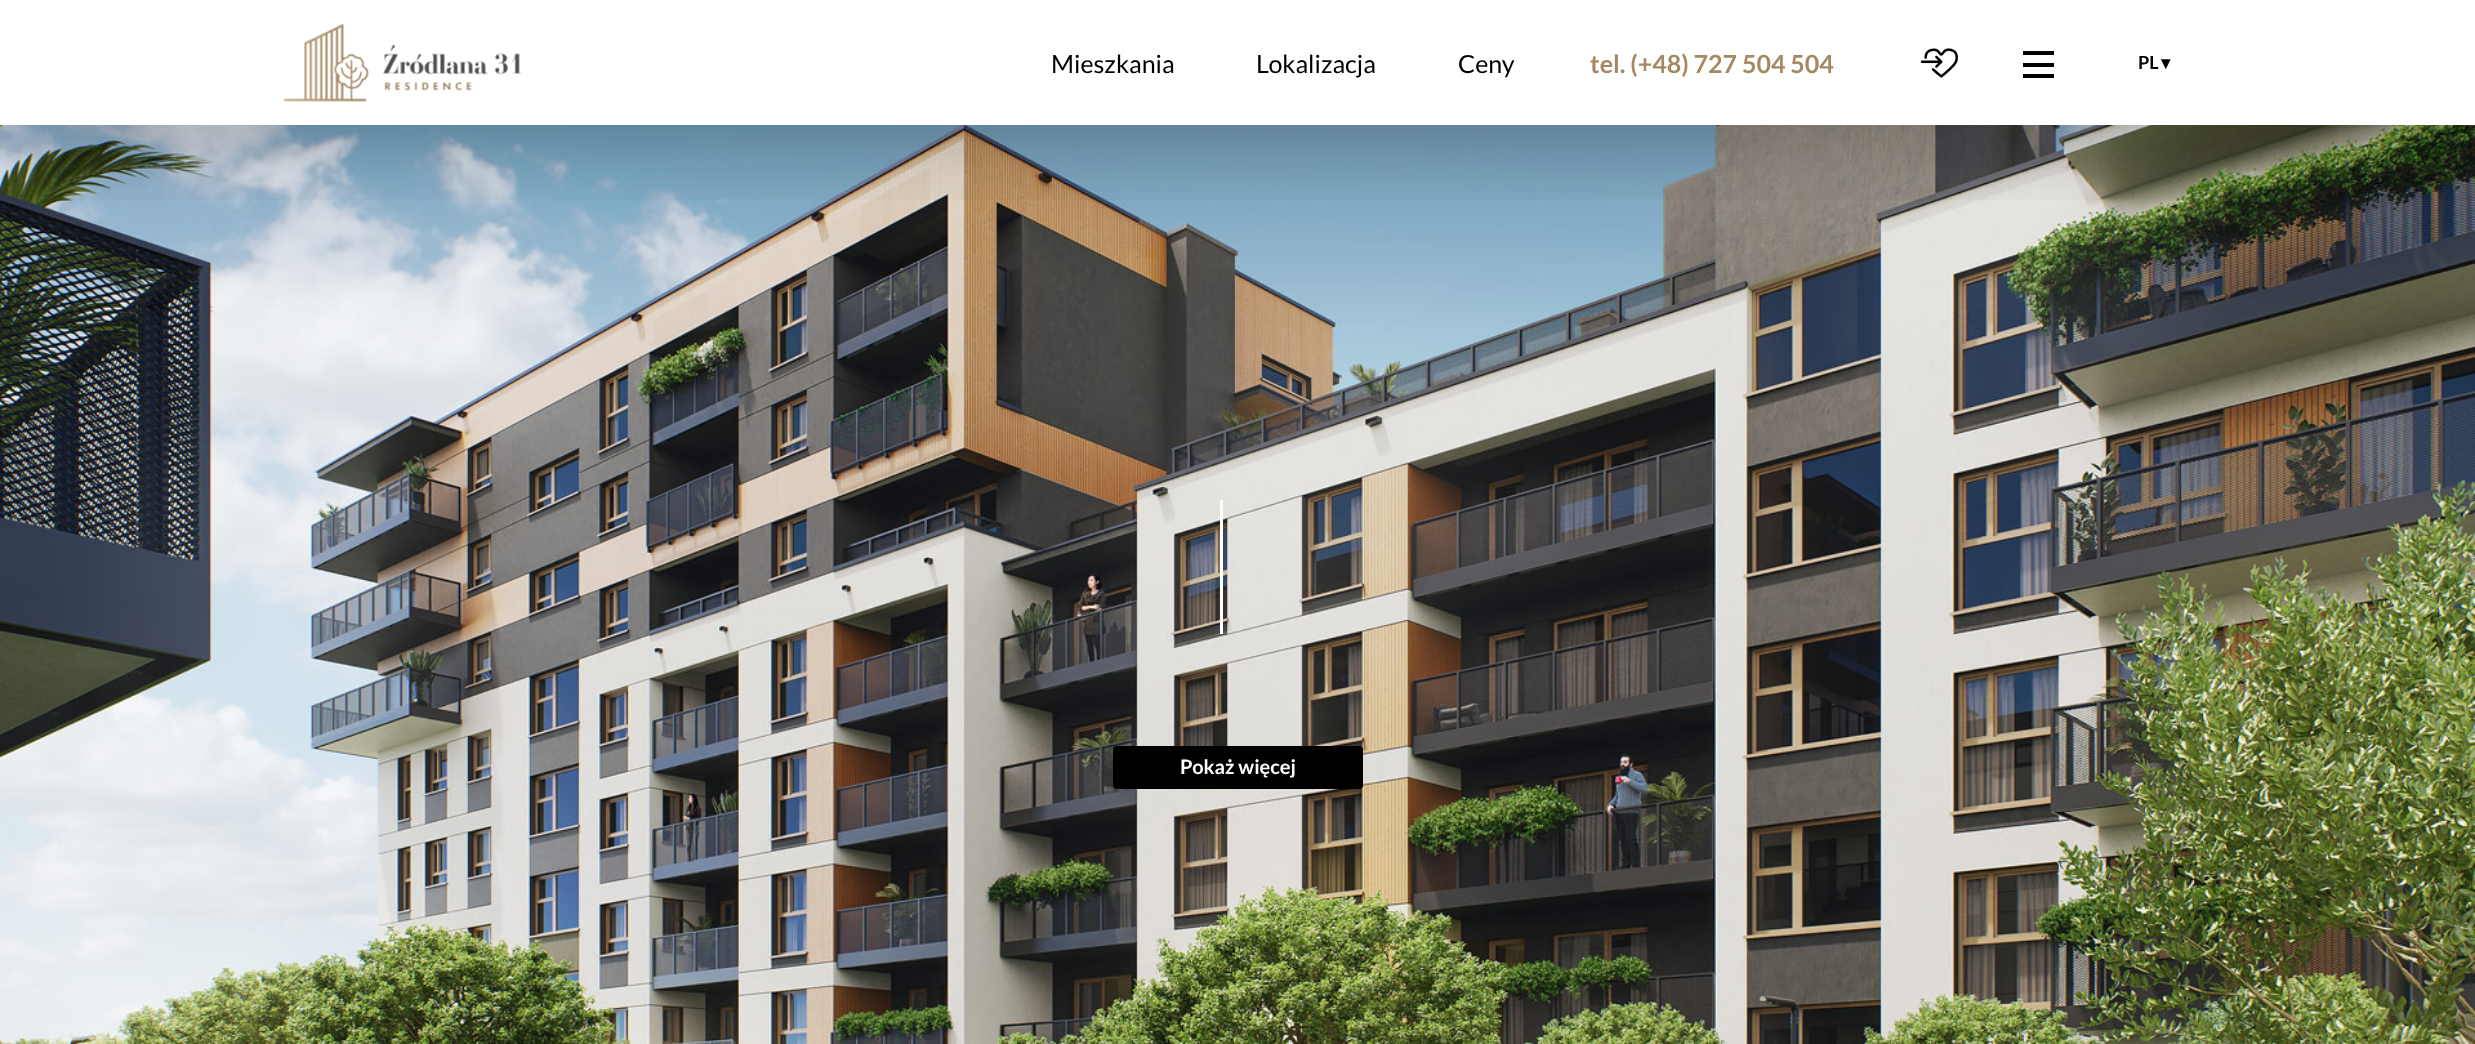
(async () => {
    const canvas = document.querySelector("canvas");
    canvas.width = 2475;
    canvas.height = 1044;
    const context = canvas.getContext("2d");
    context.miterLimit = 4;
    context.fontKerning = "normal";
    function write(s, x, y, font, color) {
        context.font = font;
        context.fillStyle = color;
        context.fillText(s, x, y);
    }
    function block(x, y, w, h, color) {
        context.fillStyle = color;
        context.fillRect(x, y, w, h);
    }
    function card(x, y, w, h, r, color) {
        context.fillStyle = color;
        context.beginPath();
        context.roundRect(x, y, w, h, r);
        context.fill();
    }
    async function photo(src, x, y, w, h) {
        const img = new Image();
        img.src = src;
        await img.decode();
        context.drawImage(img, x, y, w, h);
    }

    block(0, 0, 2475, 1044, "rgb(255, 255, 255)");
    await photo("media/3.png", 0, 125, 2475, 919);
    context.save();
    context.beginPath();
    context.rect(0, 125, 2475, 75);
    context.clip();
    context.fillStyle = "rgba(0, 0, 0, 0.3)";
    context.filter = "blur(50px)";
    context.beginPath();
    context.rect(0, 0, 2475, 125);
    context.fill();
    context.filter = "none";
    context.restore();
    await photo("media/1.png", 283, 23, 239, 79);
    write("Mieszkania", 1051, 73, "25px Lato", "rgb(0, 0, 0)");
    write("Lokalizacja", 1256, 73, "25px Lato", "rgb(0, 0, 0)");
    write("Ceny", 1458, 73, "25px Lato", "rgb(0, 0, 0)");
    write("tel. (+48) 727 504 504", 1590, 73, "bold 25px Lato", "rgb(164, 137, 98)");
    await photo("media/2.png", 1920, 48, 38, 30);
    block(2023, 63, 31, 4, "rgb(0, 0, 0)");
    block(2023, 51, 31, 4, "rgb(0, 0, 0)");
    block(2023, 74, 31, 4, "rgb(0, 0, 0)");
    write("PL", 2138, 69, "bold 18px Lato", "rgb(0, 0, 0)");
    write("▾", 2161, 69, "bold 18px DejaVu Sans", "rgb(0, 0, 0)");
    block(1220, 500, 3, 134, "rgb(255, 255, 255)");
    card(1113, 746, 250, 43, 4, "rgb(0, 0, 0)");
    write("Pokaż więcej", 1180, 774, "bold 20px Lato", "rgb(255, 255, 255)");
})();
